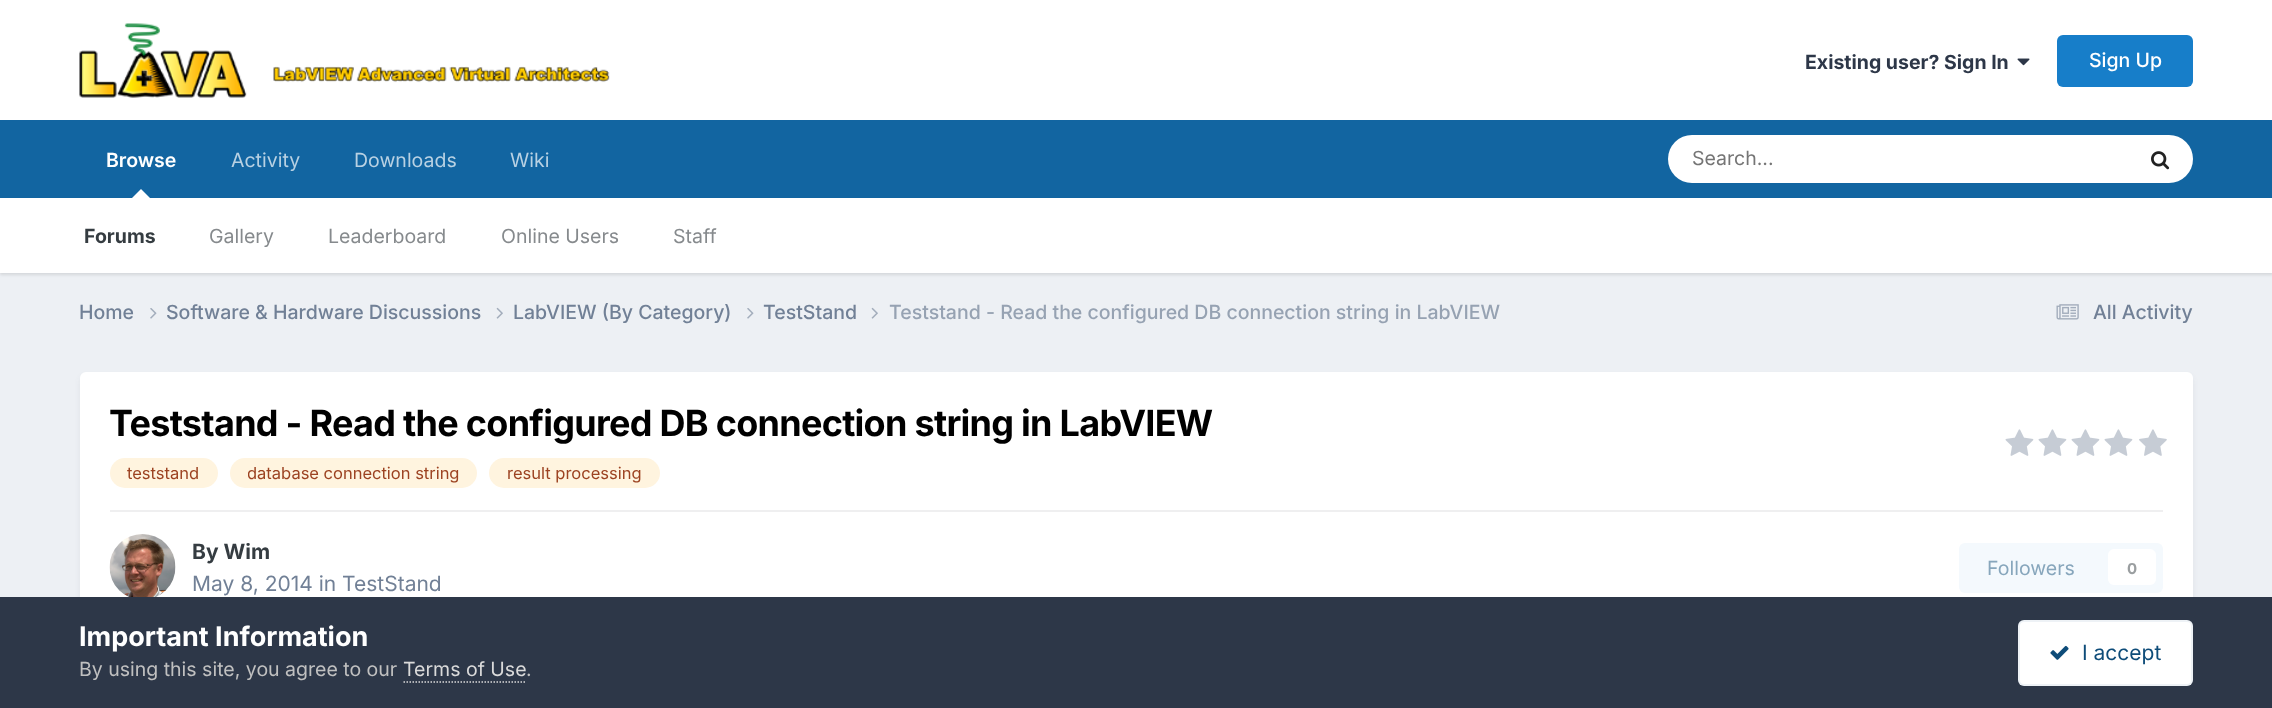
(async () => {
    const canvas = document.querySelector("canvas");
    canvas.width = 2272;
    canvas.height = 708;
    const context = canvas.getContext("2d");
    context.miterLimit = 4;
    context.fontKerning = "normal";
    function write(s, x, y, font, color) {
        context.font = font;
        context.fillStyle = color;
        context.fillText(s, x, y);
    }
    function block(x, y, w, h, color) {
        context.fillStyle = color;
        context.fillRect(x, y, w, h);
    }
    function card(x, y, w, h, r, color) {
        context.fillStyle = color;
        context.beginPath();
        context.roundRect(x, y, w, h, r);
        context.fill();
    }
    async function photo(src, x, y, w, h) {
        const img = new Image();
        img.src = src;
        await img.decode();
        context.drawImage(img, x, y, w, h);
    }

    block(0, 0, 2272, 708, "rgb(237, 240, 244)");
    block(0, 0, 2272, 120, "rgb(255, 255, 255)");
    await photo("media/1.png", 79, 23, 531, 75);
    write("Existing user? Sign In", 1805, 69, "bold 19.5px Inter", "rgb(45, 55, 72)");
    await photo("media/2.png", 2017, 58, 13, 8);
    card(2057, 35, 136, 52, 6, "rgb(23, 126, 201)");
    write("Sign Up", 2089, 67, "500 19.5px Inter", "rgb(255, 255, 255)");
    block(0, 120, 2272, 78, "rgb(18, 101, 161)");
    write("Browse", 106, 167, "600 19.5px Inter", "rgb(255, 255, 255)");
    context.fillStyle = "rgba(0, 0, 0, 0.1)";
    context.filter = "blur(1.5px)";
    context.beginPath();
    context.rect(0, 200, 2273, 75);
    context.fill();
    context.filter = "none";
    context.fillStyle = "rgb(255, 255, 255)";
    context.beginPath();
    context.moveTo(150, 198);
    context.lineTo(132, 198);
    context.lineTo(141, 189);
    context.closePath();
    context.fill();
    block(0, 198, 2272, 75, "rgb(255, 255, 255)");
    write("Forums", 84, 243, "bold 19.5px Inter", "rgb(53, 60, 65)");
    write("Gallery", 209, 243, "19.5px Inter", "rgb(134, 138, 141)");
    write("Leaderboard", 328, 243, "19.5px Inter", "rgb(134, 138, 141)");
    write("Online Users", 501, 243, "19.5px Inter", "rgb(134, 138, 141)");
    write("Staff", 673, 243, "19.5px Inter", "rgb(134, 138, 141)");
    write("Activity", 231, 167, "19.5px Inter", "rgb(184, 209, 227)");
    write("Downloads", 354, 167, "19.5px Inter", "rgb(184, 209, 227)");
    write("Wiki", 510, 167, "19.5px Inter", "rgb(184, 209, 227)");
    card(1668, 135, 525, 48, 24, "rgb(255, 255, 255)");
    write("Search...", 1692, 165, "19.5px Inter", "rgb(117, 117, 117)");
    await photo("media/3.png", 2151, 151, 19, 19);
    write("Home", 79, 319, "500 19.5px Inter", "rgb(113, 128, 150)");
    await photo("media/4.png", 150, 308, 7, 11);
    write("Software & Hardware Discussions", 166, 319, "500 19.5px Inter", "rgb(113, 128, 150)");
    await photo("media/5.png", 496, 307, 7, 12);
    write("LabVIEW (By Category)", 513, 319, "500 19.5px Inter", "rgb(113, 128, 150)");
    await photo("media/4.png", 747, 308, 7, 11);
    write("TestStand", 763, 319, "500 19.5px Inter", "rgb(113, 128, 150)");
    await photo("media/5.png", 871, 307, 7, 12);
    write("Teststand - Read the configured DB connection string in LabVIEW", 889, 319, "500 19.5px Inter", "rgb(150, 162, 178)");
    await photo("media/6.png", 2056, 304, 23, 16);
    write("All Activity", 2093, 319, "500 19.5px Inter", "rgb(113, 128, 150)");
    context.fillStyle = "rgba(45, 55, 72, 0.1)";
    context.filter = "blur(3px)";
    context.beginPath();
    context.roundRect(81, 377, 2111, 255, 5);
    context.fill();
    context.filter = "none";
    card(80, 372, 2113, 258, 6, "rgb(255, 255, 255)");
    context.letterSpacing = "-0.72px";
    write("Teststand - Read the configured DB connection string in LabVIEW", 109, 436, "bold 36px Inter", "rgb(0, 0, 0)");
    card(110, 458, 108, 30, 15, "rgb(255, 244, 223)");
    context.letterSpacing = "0px";
    write("teststand", 127, 479, "16.5px Inter", "rgb(156, 66, 33)");
    card(230, 458, 247, 30, 15, "rgb(255, 244, 223)");
    context.save();
    context.beginPath();
    context.rect(248, 458, 211, 30);
    context.clip();
    write("database connection string", 247, 479, "16.5px Inter", "rgb(156, 66, 33)");
    context.restore();
    card(489, 458, 171, 30, 15, "rgb(255, 244, 223)");
    write("result processing", 507, 479, "16.5px Inter", "rgb(156, 66, 33)");
    await photo("media/7.png", 2005, 429, 29, 27);
    await photo("media/7.png", 2038, 429, 29, 27);
    await photo("media/7.png", 2071, 429, 29, 27);
    await photo("media/7.png", 2104, 429, 29, 27);
    await photo("media/8.png", 2139, 429, 28, 27);
    block(110, 510, 2053, 2, "rgb(239, 239, 240)");
    await photo("media/9.png", 109, 534, 67, 63);
    write("By Wim", 192, 559, "bold 21px Inter", "rgb(53, 60, 65)");
    write("May 8, 2014 in TestStand", 192, 591, "21px Inter", "rgb(113, 128, 150)");
    card(1959, 543, 204, 50, 6, "rgb(244, 249, 253)");
    write("Followers", 1987, 575, "19.5px Inter", "rgb(135, 166, 188)");
    card(2108, 549, 48, 36, 6, "rgb(255, 255, 255)");
    write("0", 2127, 574, "bold 15px Inter", "rgb(154, 158, 160)");
    block(0, 597, 2272, 111, "rgb(45, 55, 72)");
    write("Important Information", 79, 646, "bold 27px Inter", "rgb(255, 255, 255)");
    write("By using this site, you agree to our", 79, 676, "19.5px Inter", "rgb(192, 192, 192)");
    write("Terms of Use", 403, 676, "19.5px Inter", "rgb(218, 218, 218)");
    context.beginPath();
    context.moveTo(403.5, 682);
    context.lineTo(526.5, 682);
    context.strokeStyle = "rgb(218, 218, 218)";
    context.lineWidth = 1.5;
    context.setLineDash([1.5, 1.5]);
    context.stroke();
    write(".", 526, 676, "19.5px Inter", "rgb(192, 192, 192)");
    card(2018, 620, 175, 66, 6, "rgb(255, 255, 255)");
    context.beginPath();
    context.roundRect(2019, 621, 173, 64, 5);
    context.strokeStyle = "rgba(14, 76, 121, 0.07)";
    context.lineWidth = 2;
    context.setLineDash([]);
    context.stroke();
    await photo("media/10.png", 2050, 645, 19, 15);
    write("I accept", 2082, 660, "21px Inter", "rgb(14, 76, 121)");
})();
